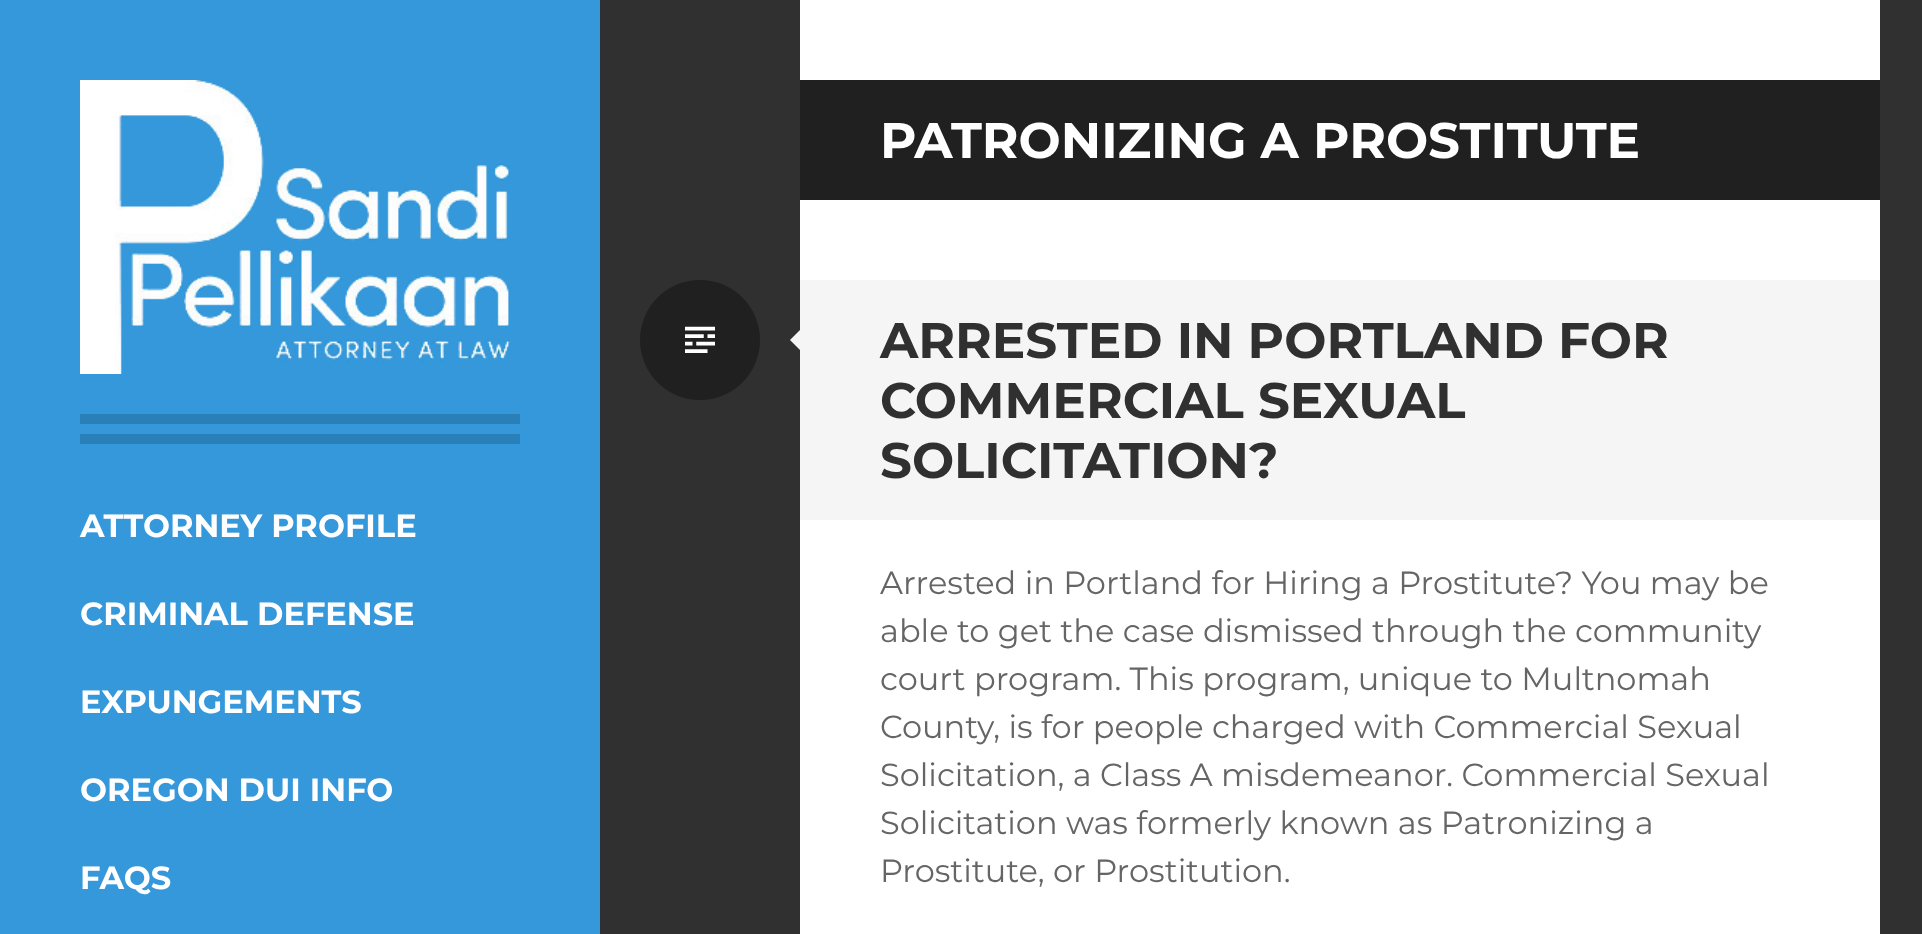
(async () => {
    const canvas = document.querySelector("canvas");
    canvas.width = 1922;
    canvas.height = 934;
    const context = canvas.getContext("2d");
    context.miterLimit = 4;
    context.fontKerning = "normal";
    function write(s, x, y, font, color) {
        context.font = font;
        context.fillStyle = color;
        context.fillText(s, x, y);
    }
    function block(x, y, w, h, color) {
        context.fillStyle = color;
        context.fillRect(x, y, w, h);
    }
    async function photo(src, x, y, w, h) {
        const img = new Image();
        img.src = src;
        await img.decode();
        context.drawImage(img, x, y, w, h);
    }

    block(0, 0, 1922, 934, "rgb(48, 48, 48)");
    block(0, 0, 600, 934, "rgb(52, 152, 219)");
    block(800, 0, 1080, 934, "rgb(255, 255, 255)");
    await photo("media/1.png", 80, 80, 430, 294);
    block(80, 414, 440, 10, "rgb(41, 128, 185)");
    block(80, 434, 440, 10, "rgb(41, 128, 185)");
    write("ATTORNEY PROFILE", 80, 537, "bold 32px Montserrat", "rgb(255, 255, 255)");
    write("CRIMINAL DEFENSE", 80, 625, "bold 32px Montserrat", "rgb(255, 255, 255)");
    write("EXPUNGEMENTS", 80, 713, "bold 32px Montserrat", "rgb(255, 255, 255)");
    write("OREGON DUI INFO", 80, 801, "bold 32px Montserrat", "rgb(255, 255, 255)");
    write("FAQS", 80, 889, "bold 32px Montserrat", "rgb(255, 255, 255)");
    block(800, 80, 1080, 120, "rgb(32, 32, 32)");
    write("PATRONIZING A PROSTITUTE", 880, 158, "bold 50px Montserrat", "rgb(255, 255, 255)");
    context.fillStyle = "rgb(32, 32, 32)";
    context.beginPath();
    context.arc(700, 340, 60, 0, Math.PI * 2);
    context.fill();
    await photo("media/2.png", 685, 326, 30, 27);
    block(800, 280, 1080, 240, "rgb(245, 245, 245)");
    context.beginPath();
    context.moveTo(800, 330);
    context.lineTo(800, 350);
    context.lineTo(790, 340);
    context.closePath();
    context.fill();
    write("ARRESTED IN PORTLAND FOR", 880, 358, "bold 50px Montserrat", "rgb(48, 48, 48)");
    write("COMMERCIAL SEXUAL", 880, 418, "bold 50px Montserrat", "rgb(48, 48, 48)");
    write("SOLICITATION?", 880, 478, "bold 50px Montserrat", "rgb(48, 48, 48)");
    write("Arrested in Portland for Hiring a Prostitute? You may be", 880, 594, "32px Montserrat", "rgb(101, 101, 101)");
    write("able to get the case dismissed through the community", 880, 642, "32px Montserrat", "rgb(101, 101, 101)");
    write("court program. This program, unique to Multnomah", 880, 690, "32px Montserrat", "rgb(101, 101, 101)");
    write("County, is for people charged with Commercial Sexual", 880, 738, "32px Montserrat", "rgb(101, 101, 101)");
    write("Solicitation, a Class A misdemeanor. Commercial Sexual", 880, 786, "32px Montserrat", "rgb(101, 101, 101)");
    write("Solicitation was formerly known as Patronizing a", 880, 834, "32px Montserrat", "rgb(101, 101, 101)");
    write("Prostitute, or Prostitution.", 880, 882, "32px Montserrat", "rgb(101, 101, 101)");
})();
